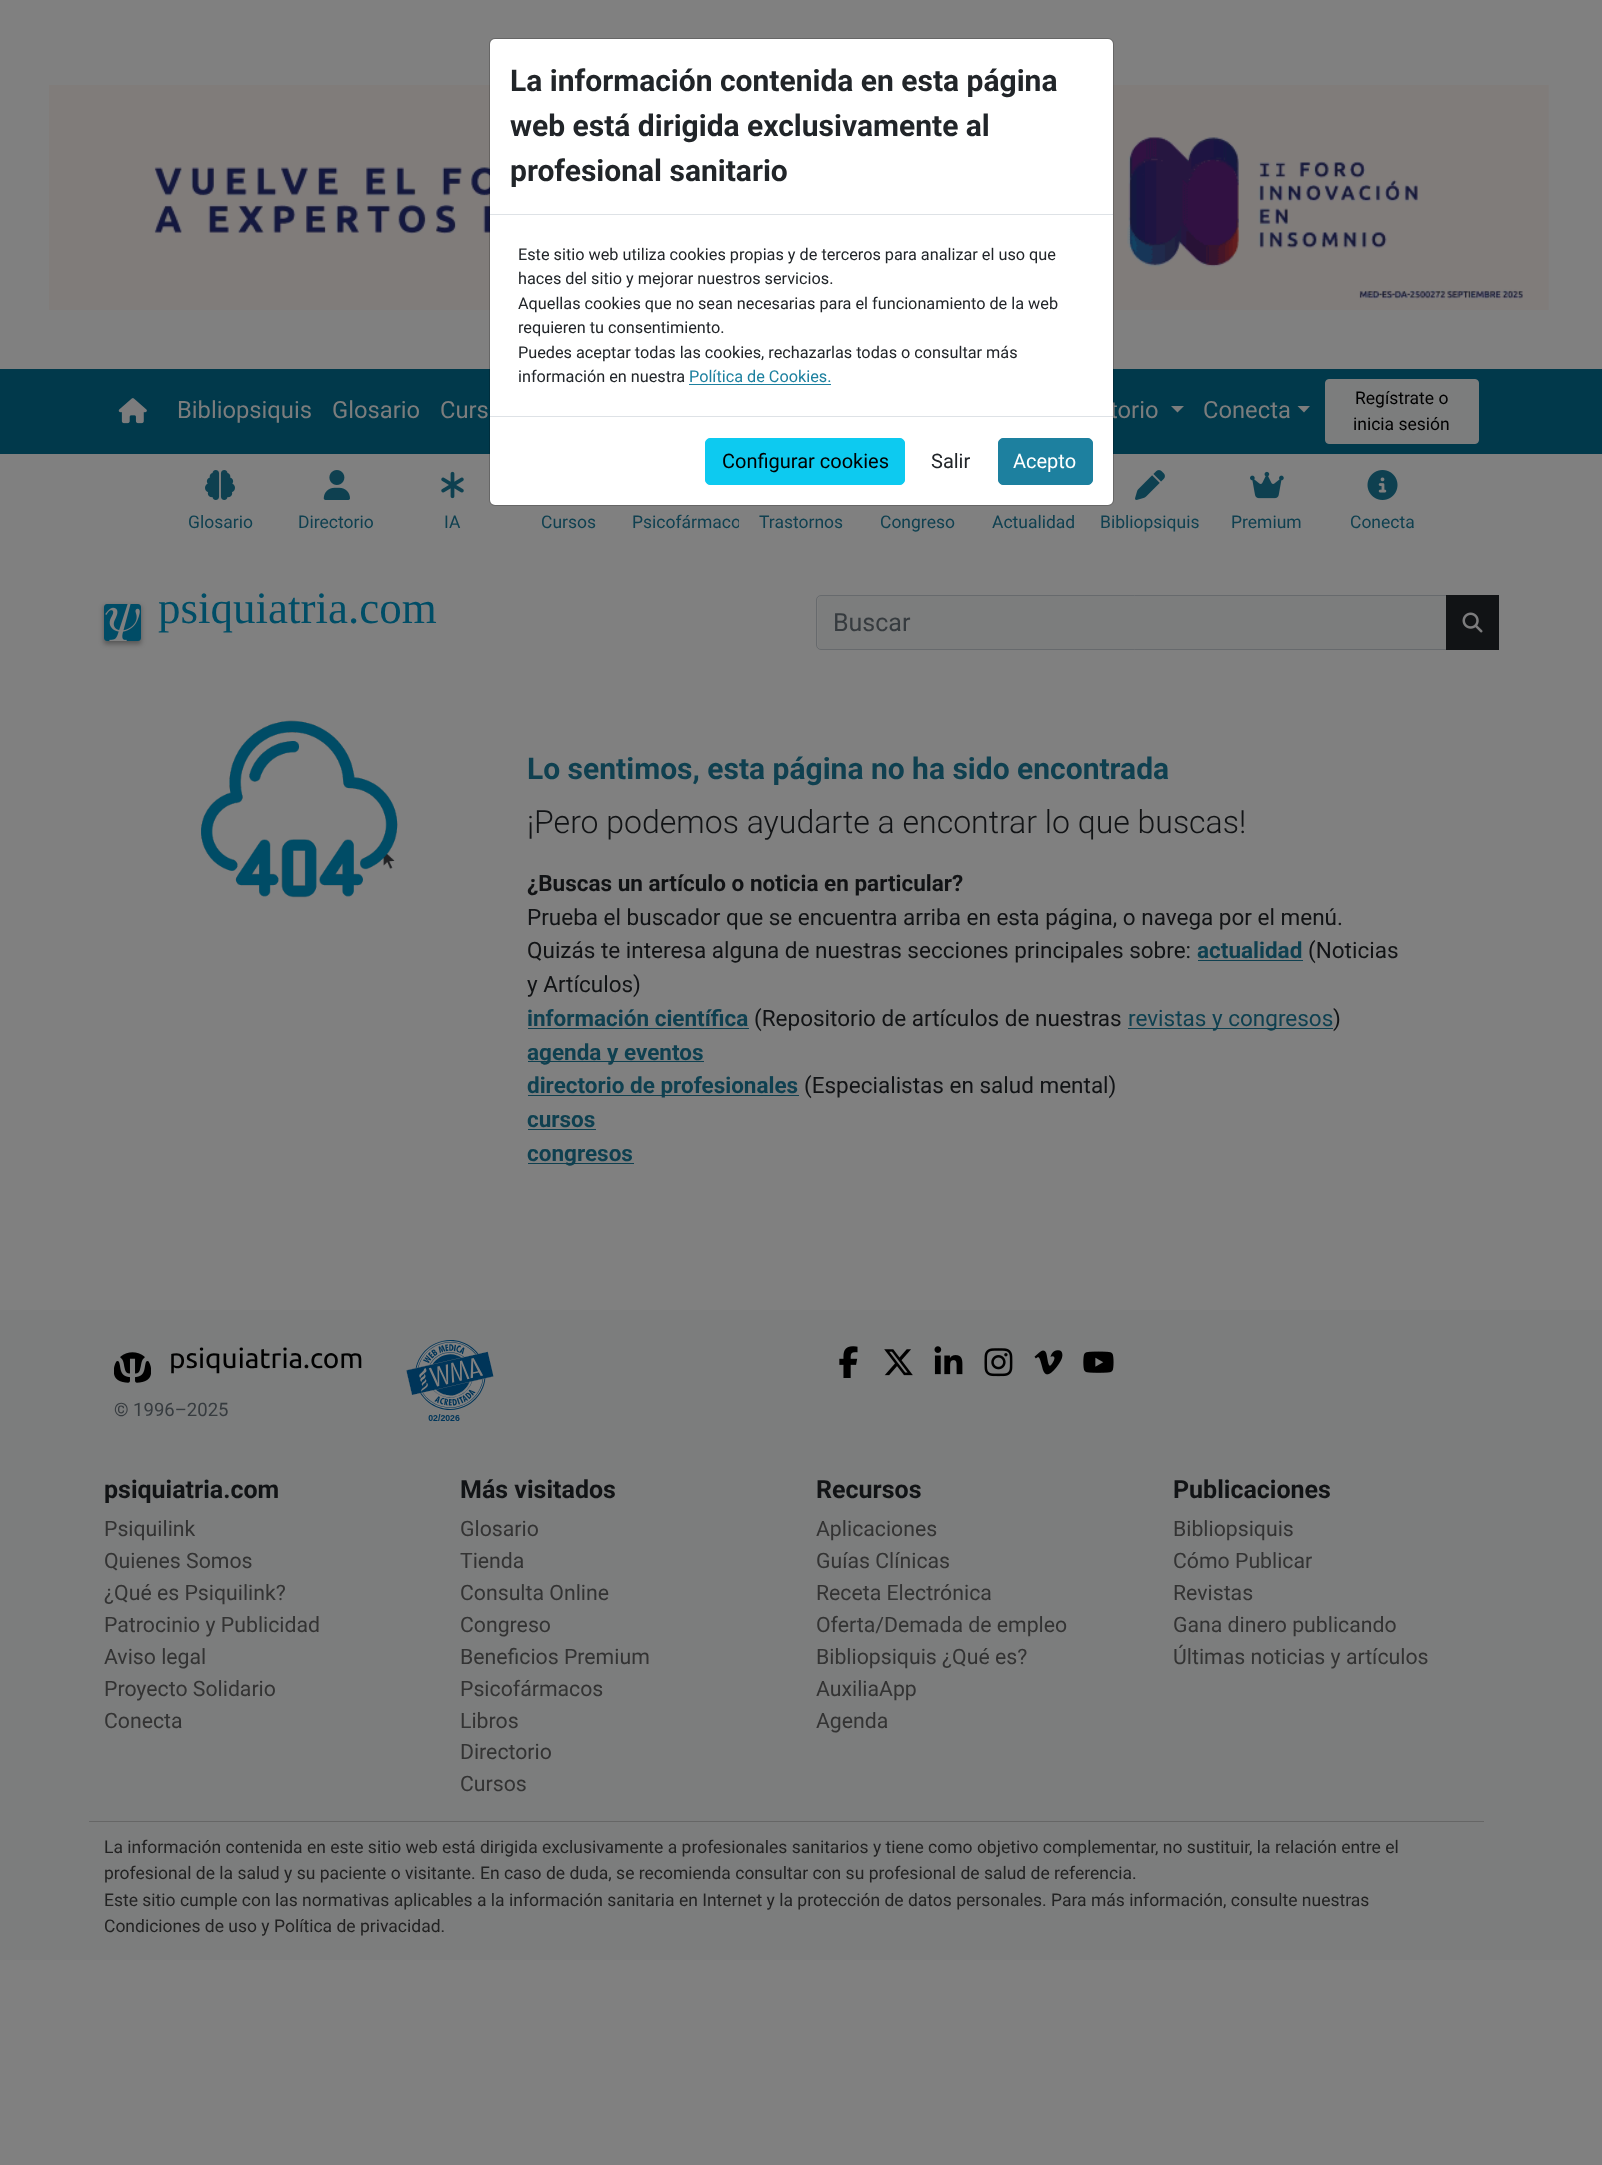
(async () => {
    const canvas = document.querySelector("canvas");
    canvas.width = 1602;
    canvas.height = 2165;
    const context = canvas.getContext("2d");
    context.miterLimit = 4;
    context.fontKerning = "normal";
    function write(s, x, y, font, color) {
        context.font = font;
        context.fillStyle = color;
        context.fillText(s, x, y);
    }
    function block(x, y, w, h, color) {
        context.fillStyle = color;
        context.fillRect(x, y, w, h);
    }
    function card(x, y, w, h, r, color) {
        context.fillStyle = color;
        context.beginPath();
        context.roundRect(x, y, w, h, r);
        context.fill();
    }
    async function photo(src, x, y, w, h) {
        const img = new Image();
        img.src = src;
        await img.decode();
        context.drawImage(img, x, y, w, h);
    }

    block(0, 0, 1602, 2165, "rgb(128, 128, 128)");
    await photo("media/1.png", 49, 85, 1500, 225);
    block(0, 369, 1602, 85, "rgb(1, 57, 75)");
    write("torio", 1110, 418, "23.75px Roboto", "rgb(124, 125, 125)");
    card(490, 39, 623, 466, 5, "rgb(255, 255, 255)");
    context.beginPath();
    context.roundRect(489.5, 38.5, 624, 467, 5.5);
    context.strokeStyle = "rgba(0, 0, 0, 0.2)";
    context.stroke();
    block(490, 214, 623, 1, "rgb(222, 226, 230)");
    write("La información contenida en esta página", 510, 91, "bold 30px Roboto", "rgb(33, 37, 41)");
    write("web está dirigida exclusivamente al", 510, 136, "bold 30px Roboto", "rgb(33, 37, 41)");
    write("profesional sanitario", 510, 181, "bold 30px Roboto", "rgb(33, 37, 41)");
    write("Este sitio web utiliza cookies propias y de terceros para analizar el uso que", 518, 260, "16.25px Roboto", "rgb(33, 37, 41)");
    write("haces del sitio y mejorar nuestros servicios.", 518, 284, "16.25px Roboto", "rgb(33, 37, 41)");
    write("Aquellas cookies que no sean necesarias para el funcionamiento de la web", 518, 309, "16.25px Roboto", "rgb(33, 37, 41)");
    write("requieren tu consentimiento.", 518, 333, "16.25px Roboto", "rgb(33, 37, 41)");
    write("Puedes aceptar todas las cookies, rechazarlas todas o consultar más", 518, 358, "16.25px Roboto", "rgb(33, 37, 41)");
    write("información en nuestra", 518, 382, "16.25px Roboto", "rgb(33, 37, 41)");
    write("Política de Cookies.", 689, 382, "16.25px Roboto", "rgb(29, 128, 159)");
    block(689, 384, 142, 1, "rgb(29, 128, 159)");
    block(490, 416, 623, 1, "rgb(222, 226, 230)");
    context.fillStyle = "rgb(13, 202, 240)";
    context.beginPath();
    context.roundRect(705.5, 438.5, 199, 46, 4.5);
    context.fill();
    context.strokeStyle = "rgb(13, 202, 240)";
    context.stroke();
    write("Configurar cookies", 722, 468, "20px Roboto", "rgb(0, 0, 0)");
    write("Salir", 931, 468, "20px Roboto", "rgb(33, 37, 41)");
    context.fillStyle = "rgb(29, 128, 159)";
    context.beginPath();
    context.roundRect(998.5, 438.5, 94, 46, 4.5);
    context.fill();
    context.strokeStyle = "rgb(29, 128, 159)";
    context.stroke();
    write("Acepto", 1013, 468, "20px Roboto", "rgb(255, 255, 255)");
    await photo("media/2.png", 118, 398, 29, 26);
    write("Bibliopsiquis", 177, 418, "23.75px Roboto", "rgb(124, 125, 125)");
    write("Glosario", 332, 418, "23.75px Roboto", "rgb(124, 125, 125)");
    write("Curs", 440, 418, "23.75px Roboto", "rgb(124, 125, 125)");
    context.beginPath();
    context.moveTo(1171, 406);
    context.lineTo(1184, 406);
    context.lineTo(1177.5, 412.5);
    context.closePath();
    context.fill();
    write("Conecta", 1203, 418, "23.75px Roboto", "rgb(124, 125, 125)");
    context.beginPath();
    context.moveTo(1297.5, 406);
    context.lineTo(1310, 406);
    context.lineTo(1304, 412.5);
    context.closePath();
    context.fill();
    context.beginPath();
    context.roundRect(1325.5, 379.5, 153, 64, 3.5);
    context.fill();
    context.strokeStyle = "rgb(124, 125, 125)";
    context.stroke();
    write("Regístrate o", 1355, 404, "17.5px Roboto", "rgb(0, 0, 0)");
    write("inicia sesión", 1353, 430, "17.5px Roboto", "rgb(0, 0, 0)");
    await photo("media/3.png", 205, 470, 30, 30);
    write("Glosario", 188, 528, "17.5px Roboto", "rgb(15, 64, 80)");
    await photo("media/4.png", 323, 470, 27, 30);
    write("Directorio", 298, 528, "17.5px Roboto", "rgb(15, 64, 80)");
    await photo("media/5.png", 441, 471, 23, 28);
    write("IA", 444, 528, "17.5px Roboto", "rgb(15, 64, 80)");
    write("Cursos", 541, 528, "17.5px Roboto", "rgb(15, 64, 80)");
    context.save();
    context.beginPath();
    context.rect(633, 470, 106, 66);
    context.clip();
    write("Psicofármaco", 632, 528, "17.5px Roboto", "rgb(15, 64, 80)");
    context.restore();
    write("Trastornos", 759, 528, "17.5px Roboto", "rgb(15, 64, 80)");
    write("Congreso", 880, 528, "17.5px Roboto", "rgb(15, 64, 80)");
    write("Actualidad", 992, 528, "17.5px Roboto", "rgb(15, 64, 80)");
    await photo("media/6.png", 1135, 470, 30, 30);
    write("Bibliopsiquis", 1100, 528, "17.5px Roboto", "rgb(15, 64, 80)");
    await photo("media/7.png", 1250, 471, 34, 28);
    write("Premium", 1231, 528, "17.5px Roboto", "rgb(15, 64, 80)");
    await photo("media/8.png", 1367, 470, 31, 30);
    write("Conecta", 1350, 528, "17.5px Roboto", "rgb(15, 64, 80)");
    context.fillStyle = "rgba(0, 0, 0, 0.33)";
    context.filter = "blur(2.5px)";
    context.beginPath();
    context.rect(104, 606, 37, 38);
    context.fill();
    context.filter = "none";
    await photo("media/9.png", 104, 604, 37, 37);
    write("psiquiatria.com", 158, 623, "45px Liberation Serif", "rgb(0, 77, 102)");
    context.fillStyle = "rgb(124, 125, 125)";
    context.beginPath();
    context.roundRect(818, 596, 628, 53, [4, 0, 0, 4]);
    context.fill();
    context.beginPath();
    context.roundRect(816.5, 595.5, 631, 54, [4.5, 0, 0, 4.5]);
    context.strokeStyle = "rgb(103, 106, 109)";
    context.stroke();
    write("Buscar", 833, 631, "25px Roboto", "rgb(54, 59, 63)");
    block(1446, 595, 53, 55, "rgb(17, 19, 21)");
    await photo("media/10.png", 1462, 612, 21, 21);
    await photo("media/11.png", 201, 720, 197, 178);
    write("Lo sentimos, esta página no ha sido encontrada", 527, 779, "bold 30px Roboto", "rgb(15, 64, 80)");
    write("¡Pero podemos ayudarte a encontrar lo que buscas!", 527, 833, "300 32px Roboto", "rgb(17, 19, 21)");
    write("¿Buscas un artículo o noticia en particular?", 527, 891, "bold 22.5px Roboto", "rgb(17, 19, 21)");
    write("Prueba el buscador que se encuentra arriba en esta página, o navega por el menú.", 527, 925, "22.5px Roboto", "rgb(17, 19, 21)");
    write("Quizás te interesa alguna de nuestras secciones principales sobre:", 527, 958, "22.5px Roboto", "rgb(17, 19, 21)");
    write("actualidad", 1197, 958, "bold 22.5px Roboto", "rgb(15, 64, 80)");
    block(1198, 960, 105, 1, "rgb(15, 64, 80)");
    write("(Noticias", 1308, 958, "22.5px Roboto", "rgb(17, 19, 21)");
    write("y Artículos)", 527, 992, "22.5px Roboto", "rgb(17, 19, 21)");
    write("información científica", 527, 1026, "bold 22.5px Roboto", "rgb(15, 64, 80)");
    block(528, 1028, 221, 1, "rgb(15, 64, 80)");
    write("(Repositorio de artículos de nuestras", 754, 1026, "22.5px Roboto", "rgb(17, 19, 21)");
    block(1128, 1028, 205, 1, "rgb(15, 64, 80)");
    write("revistas y congresos", 1128, 1026, "22.5px Roboto", "rgb(15, 64, 80)");
    write(")", 1333, 1026, "22.5px Roboto", "rgb(17, 19, 21)");
    block(528, 1061, 176, 1, "rgb(15, 64, 80)");
    write("agenda y eventos", 527, 1060, "bold 22.5px Roboto", "rgb(15, 64, 80)");
    block(528, 1095, 271, 1, "rgb(15, 64, 80)");
    write("directorio de profesionales", 527, 1093, "bold 22.5px Roboto", "rgb(15, 64, 80)");
    write("(Especialistas en salud mental)", 804, 1093, "22.5px Roboto", "rgb(17, 19, 21)");
    write("cursos", 527, 1127, "bold 22.5px Roboto", "rgb(15, 64, 80)");
    block(528, 1129, 68, 1, "rgb(15, 64, 80)");
    block(528, 1163, 106, 1, "rgb(15, 64, 80)");
    write("congresos", 527, 1161, "bold 22.5px Roboto", "rgb(15, 64, 80)");
    block(0, 1310, 1602, 650, "rgb(124, 125, 125)");
    await photo("media/12.png", 114, 1352, 37, 31);
    write("psiquiatria.com", 169, 1368, "28px Ubuntu", "rgb(0, 0, 0)");
    write("© 1996–2025", 114, 1416, "18.5px Roboto", "rgb(54, 59, 63)");
    await photo("media/13.png", 406, 1340, 88, 81);
    await photo("media/14.png", 839, 1346, 19, 32);
    await photo("media/15.png", 884, 1349, 29, 27);
    await photo("media/16.png", 934, 1346, 29, 29);
    await photo("media/17.png", 984, 1348, 29, 29);
    await photo("media/18.png", 1034, 1350, 29, 25);
    await photo("media/19.png", 1083, 1351, 31, 22);
    write("psiquiatria.com", 104, 1498, "bold 25px Roboto", "rgb(17, 19, 21)");
    write("Psiquilink", 104, 1536, "21.25px Roboto", "rgb(51, 51, 51)");
    write("Quienes Somos", 104, 1568, "21.25px Roboto", "rgb(51, 51, 51)");
    write("¿Qué es Psiquilink?", 104, 1600, "21.25px Roboto", "rgb(51, 51, 51)");
    write("Patrocinio y Publicidad", 104, 1632, "21.25px Roboto", "rgb(51, 51, 51)");
    write("Aviso legal", 104, 1664, "21.25px Roboto", "rgb(51, 51, 51)");
    write("Proyecto Solidario", 104, 1696, "21.25px Roboto", "rgb(51, 51, 51)");
    write("Conecta", 104, 1728, "21.25px Roboto", "rgb(51, 51, 51)");
    write("Más visitados", 460, 1498, "bold 25px Roboto", "rgb(17, 19, 21)");
    write("Glosario", 460, 1536, "21.25px Roboto", "rgb(51, 51, 51)");
    write("Tienda", 460, 1568, "21.25px Roboto", "rgb(51, 51, 51)");
    write("Consulta Online", 460, 1600, "21.25px Roboto", "rgb(51, 51, 51)");
    write("Congreso", 460, 1632, "21.25px Roboto", "rgb(51, 51, 51)");
    write("Beneficios Premium", 460, 1664, "21.25px Roboto", "rgb(51, 51, 51)");
    write("Psicofármacos", 460, 1696, "21.25px Roboto", "rgb(51, 51, 51)");
    write("Libros", 460, 1728, "21.25px Roboto", "rgb(51, 51, 51)");
    write("Directorio", 460, 1759, "21.25px Roboto", "rgb(51, 51, 51)");
    write("Cursos", 460, 1791, "21.25px Roboto", "rgb(51, 51, 51)");
    write("Recursos", 816, 1498, "bold 25px Roboto", "rgb(17, 19, 21)");
    write("Aplicaciones", 816, 1536, "21.25px Roboto", "rgb(51, 51, 51)");
    write("Guías Clínicas", 816, 1568, "21.25px Roboto", "rgb(51, 51, 51)");
    write("Receta Electrónica", 816, 1600, "21.25px Roboto", "rgb(51, 51, 51)");
    write("Oferta/Demada de empleo", 816, 1632, "21.25px Roboto", "rgb(51, 51, 51)");
    write("Bibliopsiquis ¿Qué es?", 816, 1664, "21.25px Roboto", "rgb(51, 51, 51)");
    write("AuxiliaApp", 816, 1696, "21.25px Roboto", "rgb(51, 51, 51)");
    write("Agenda", 816, 1728, "21.25px Roboto", "rgb(51, 51, 51)");
    write("Publicaciones", 1173, 1498, "bold 25px Roboto", "rgb(17, 19, 21)");
    write("Bibliopsiquis", 1173, 1536, "21.25px Roboto", "rgb(51, 51, 51)");
    write("Cómo Publicar", 1173, 1568, "21.25px Roboto", "rgb(51, 51, 51)");
    write("Revistas", 1173, 1600, "21.25px Roboto", "rgb(51, 51, 51)");
    write("Gana dinero publicando", 1173, 1632, "21.25px Roboto", "rgb(51, 51, 51)");
    write("Últimas noticias y artículos", 1173, 1664, "21.25px Roboto", "rgb(51, 51, 51)");
    block(89, 1821, 1395, 1, "rgb(102, 102, 102)");
    write("La información contenida en este sitio web está dirigida exclusivamente a profesionales sanitarios y tiene como objetivo complementar, no sustituir, la relación entre el", 104, 1853, "17.5px Roboto", "rgb(34, 34, 34)");
    write("profesional de la salud y su paciente o visitante. En caso de duda, se recomienda consultar con su profesional de salud de referencia.", 104, 1879, "17.5px Roboto", "rgb(34, 34, 34)");
    write("Este sitio cumple con las normativas aplicables a la información sanitaria en Internet y la protección de datos personales. Para más información, consulte nuestras", 104, 1906, "17.5px Roboto", "rgb(34, 34, 34)");
    write("Condiciones de uso y Política de privacidad.", 104, 1932, "17.5px Roboto", "rgb(34, 34, 34)");
})();
